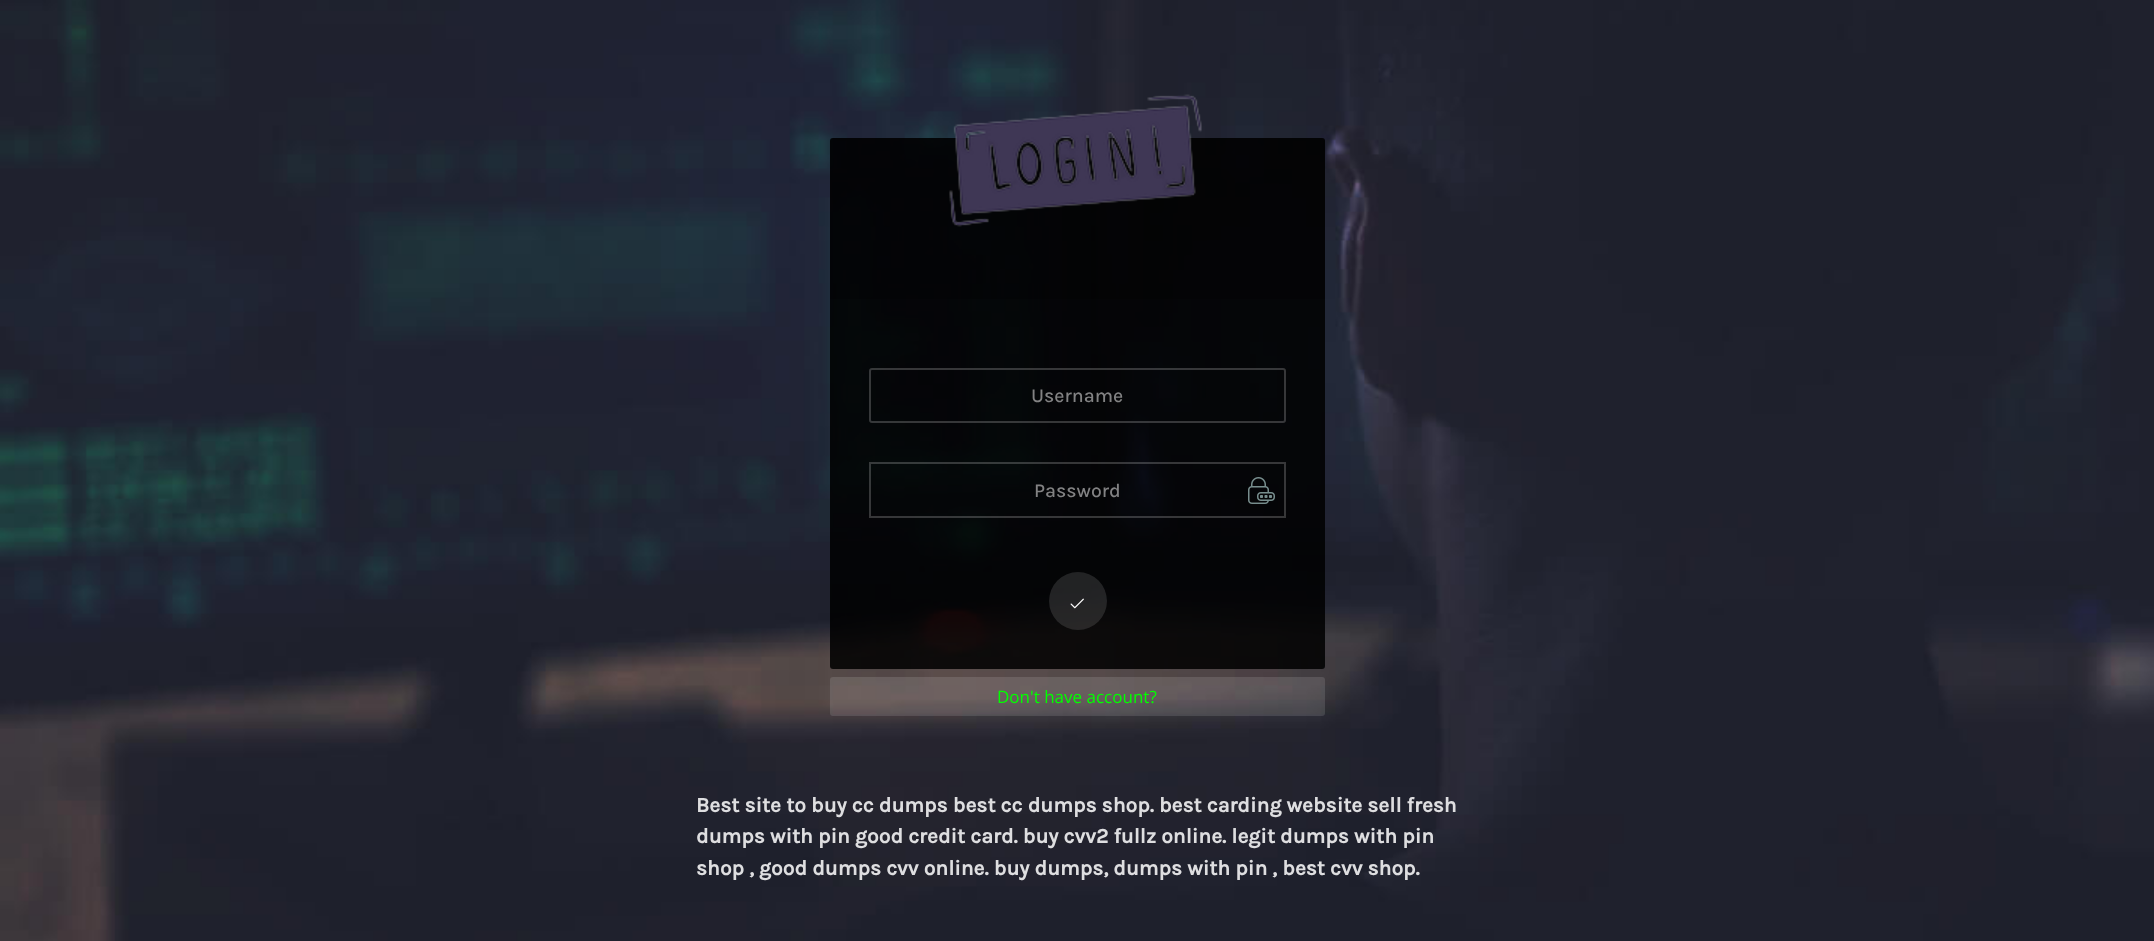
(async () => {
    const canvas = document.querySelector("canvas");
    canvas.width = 2154;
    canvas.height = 941;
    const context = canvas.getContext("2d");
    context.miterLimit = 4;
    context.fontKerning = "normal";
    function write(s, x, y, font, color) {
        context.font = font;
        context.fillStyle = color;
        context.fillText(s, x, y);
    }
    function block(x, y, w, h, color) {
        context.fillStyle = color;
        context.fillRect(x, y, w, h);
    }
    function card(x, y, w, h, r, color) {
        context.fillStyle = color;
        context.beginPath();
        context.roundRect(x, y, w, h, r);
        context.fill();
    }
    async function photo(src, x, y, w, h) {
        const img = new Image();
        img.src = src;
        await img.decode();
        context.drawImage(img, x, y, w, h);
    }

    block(0, 0, 2154, 941, "rgb(255, 255, 255)");
    await photo("media/1.png", 0, 0, 2154, 941);
    card(830, 138, 495, 531, 3, "rgba(0, 0, 0, 0.85)");
    context.fillStyle = "rgba(0, 0, 0, 0.2)";
    context.beginPath();
    context.roundRect(830, 138, 495, 161, [3, 3, 0, 0]);
    context.fill();
    await photo("media/2.png", 949, 94, 253, 133);
    context.beginPath();
    context.roundRect(870, 369, 415, 53, 2);
    context.strokeStyle = "rgba(255, 255, 255, 0.2)";
    context.lineWidth = 2;
    context.stroke();
    write("Username", 1031, 402, "500 19.5px Karla", "rgb(130, 130, 131)");
    context.strokeRect(870, 463, 415, 54);
    write("Password", 1034, 497, "500 19.5px Karla", "rgb(130, 130, 131)");
    await photo("media/3.png", 1248, 477, 27, 27);
    context.fillStyle = "rgba(255, 255, 255, 0.12)";
    context.beginPath();
    context.arc(1078, 601, 29, 0, Math.PI * 2);
    context.fill();
    await photo("media/4.png", 1070, 598, 14, 11);
    card(830, 677, 495, 39, 3, "rgba(255, 255, 255, 0.12)");
    write("Don't have account?", 997, 703, "17px Open Sans", "rgb(0, 255, 0)");
    write("Best site to buy cc dumps best cc dumps shop. best carding website sell fresh", 696, 812, "bold 21px Karla", "rgb(222, 222, 224)");
    write("dumps with pin good credit card. buy cvv2 fullz online. legit dumps with pin", 696, 843, "bold 21px Karla", "rgb(222, 222, 224)");
    write("shop , good dumps cvv online. buy dumps, dumps with pin , best cvv shop.", 696, 875, "bold 21px Karla", "rgb(222, 222, 224)");
})();
